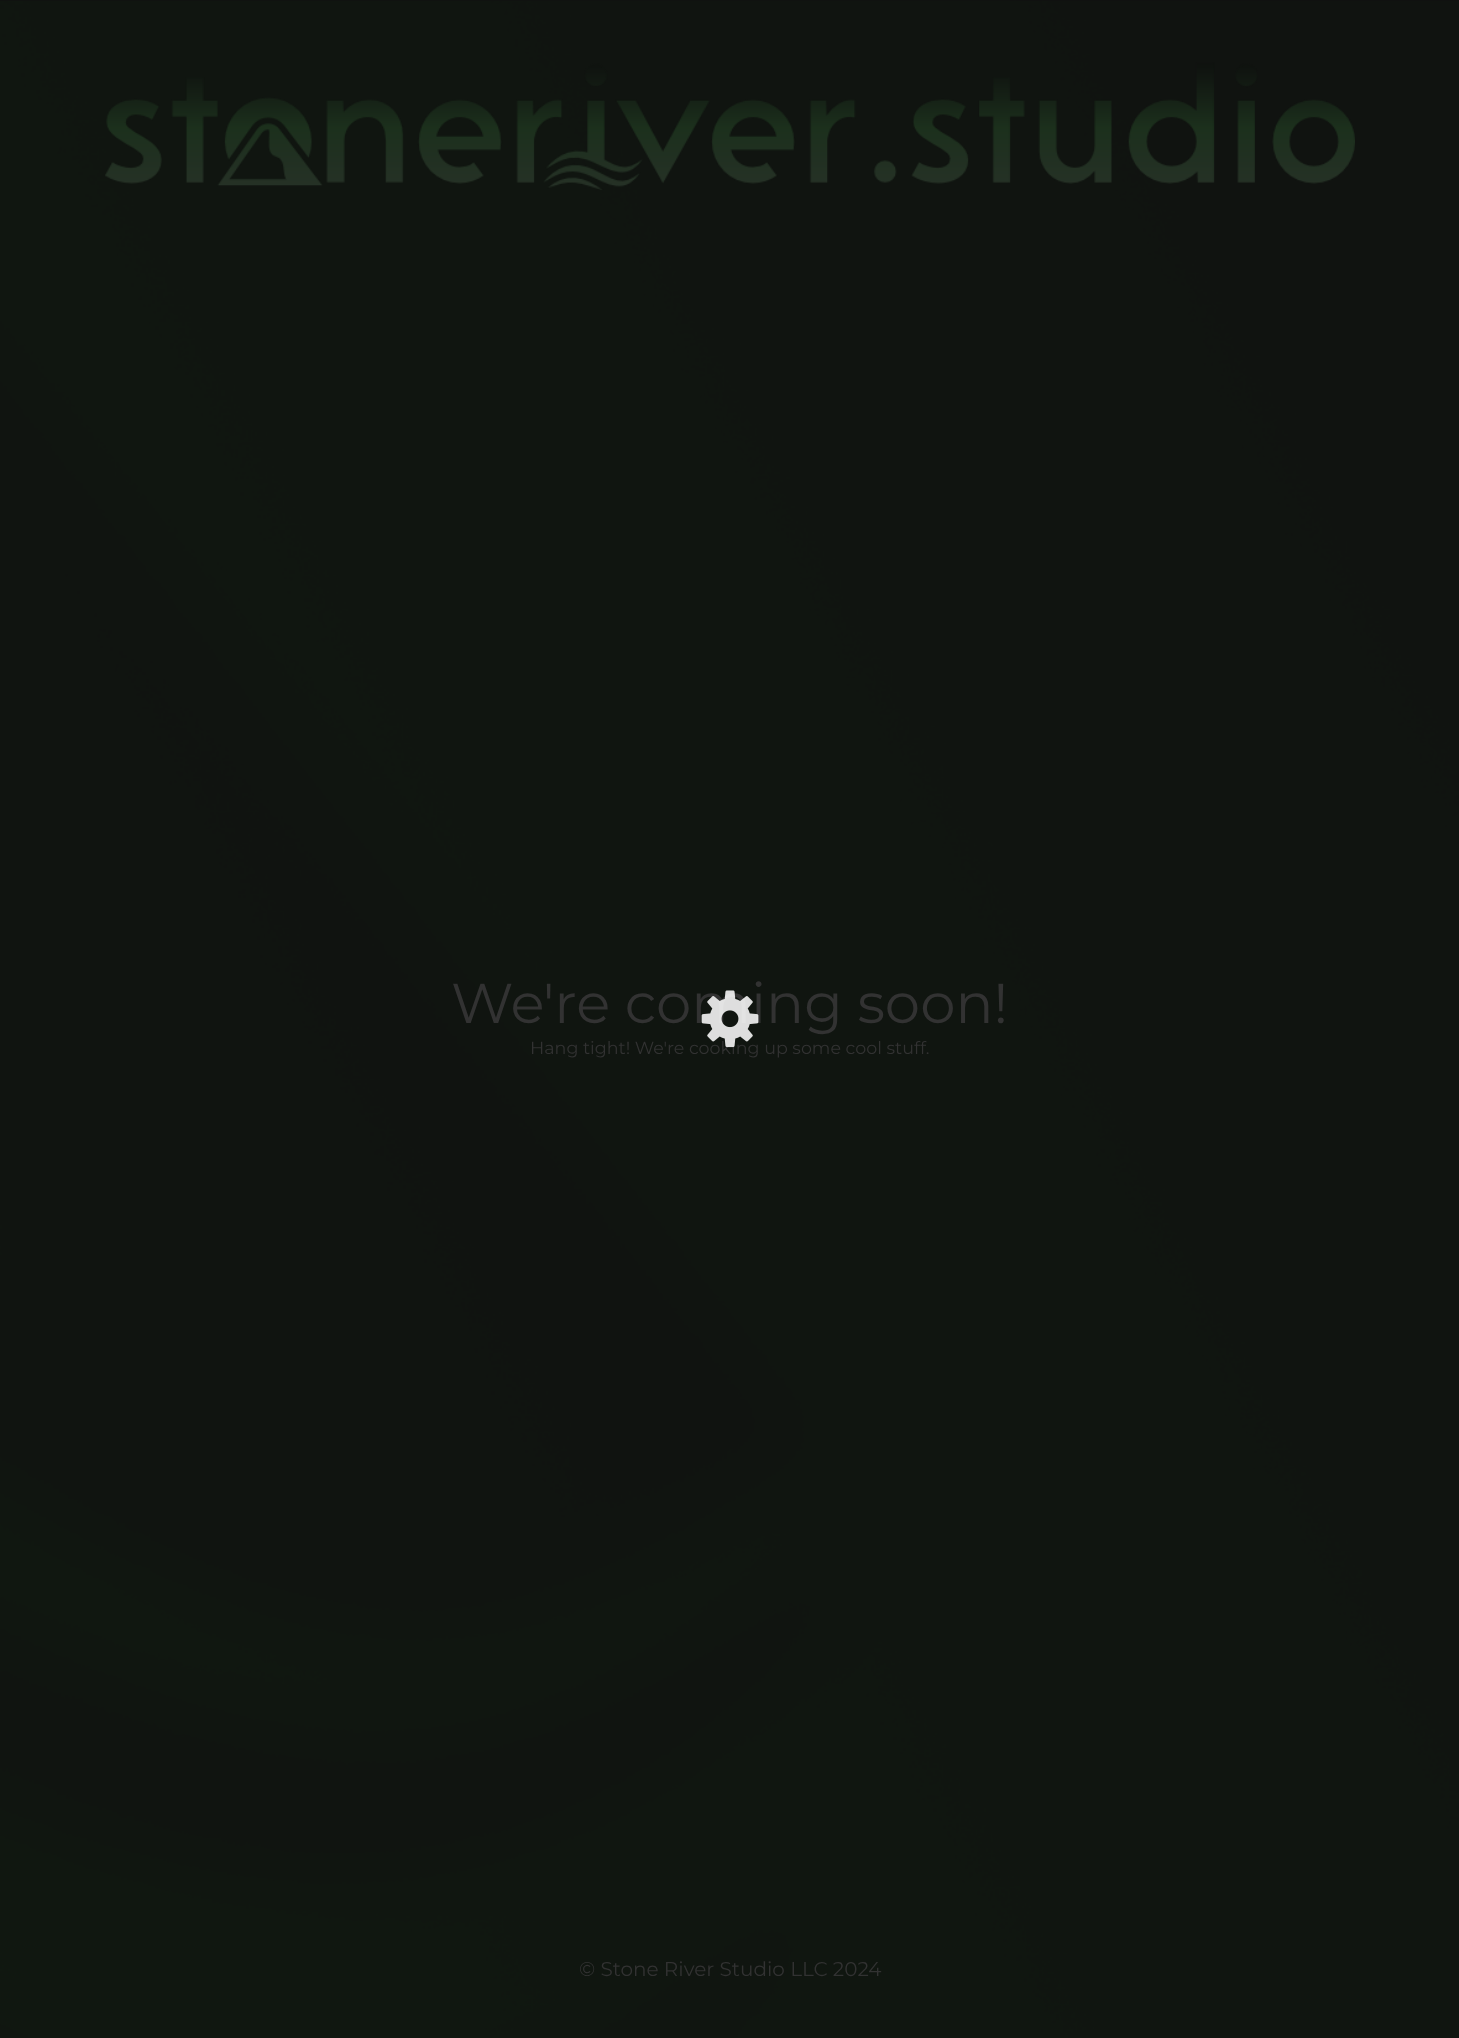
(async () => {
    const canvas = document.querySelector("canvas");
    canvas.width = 1459;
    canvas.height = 2038;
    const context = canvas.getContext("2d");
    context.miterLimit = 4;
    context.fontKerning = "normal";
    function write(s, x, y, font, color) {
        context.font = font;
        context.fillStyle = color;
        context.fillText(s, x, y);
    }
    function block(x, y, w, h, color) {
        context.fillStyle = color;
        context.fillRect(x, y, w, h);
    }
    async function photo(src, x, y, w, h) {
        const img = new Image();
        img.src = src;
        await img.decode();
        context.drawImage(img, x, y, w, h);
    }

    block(0, 0, 1459, 2038, "rgb(17, 17, 17)");
    await photo("media/1.png", 0, 0, 1459, 2038);
    await photo("media/2.png", 105, 62, 1250, 128);
    write("We're coming soon!", 451, 1023, "100 56.25px Montserrat", "rgb(50, 50, 50)");
    write("Hang tight! We're cooking up some cool stuff.", 530, 1054, "100 17.5px Montserrat", "rgb(50, 50, 50)");
    await photo("media/3.png", 701, 990, 58, 58);
    write("© Stone River Studio LLC 2024", 579, 1976, "100 20px Montserrat", "rgb(50, 50, 50)");
})();
